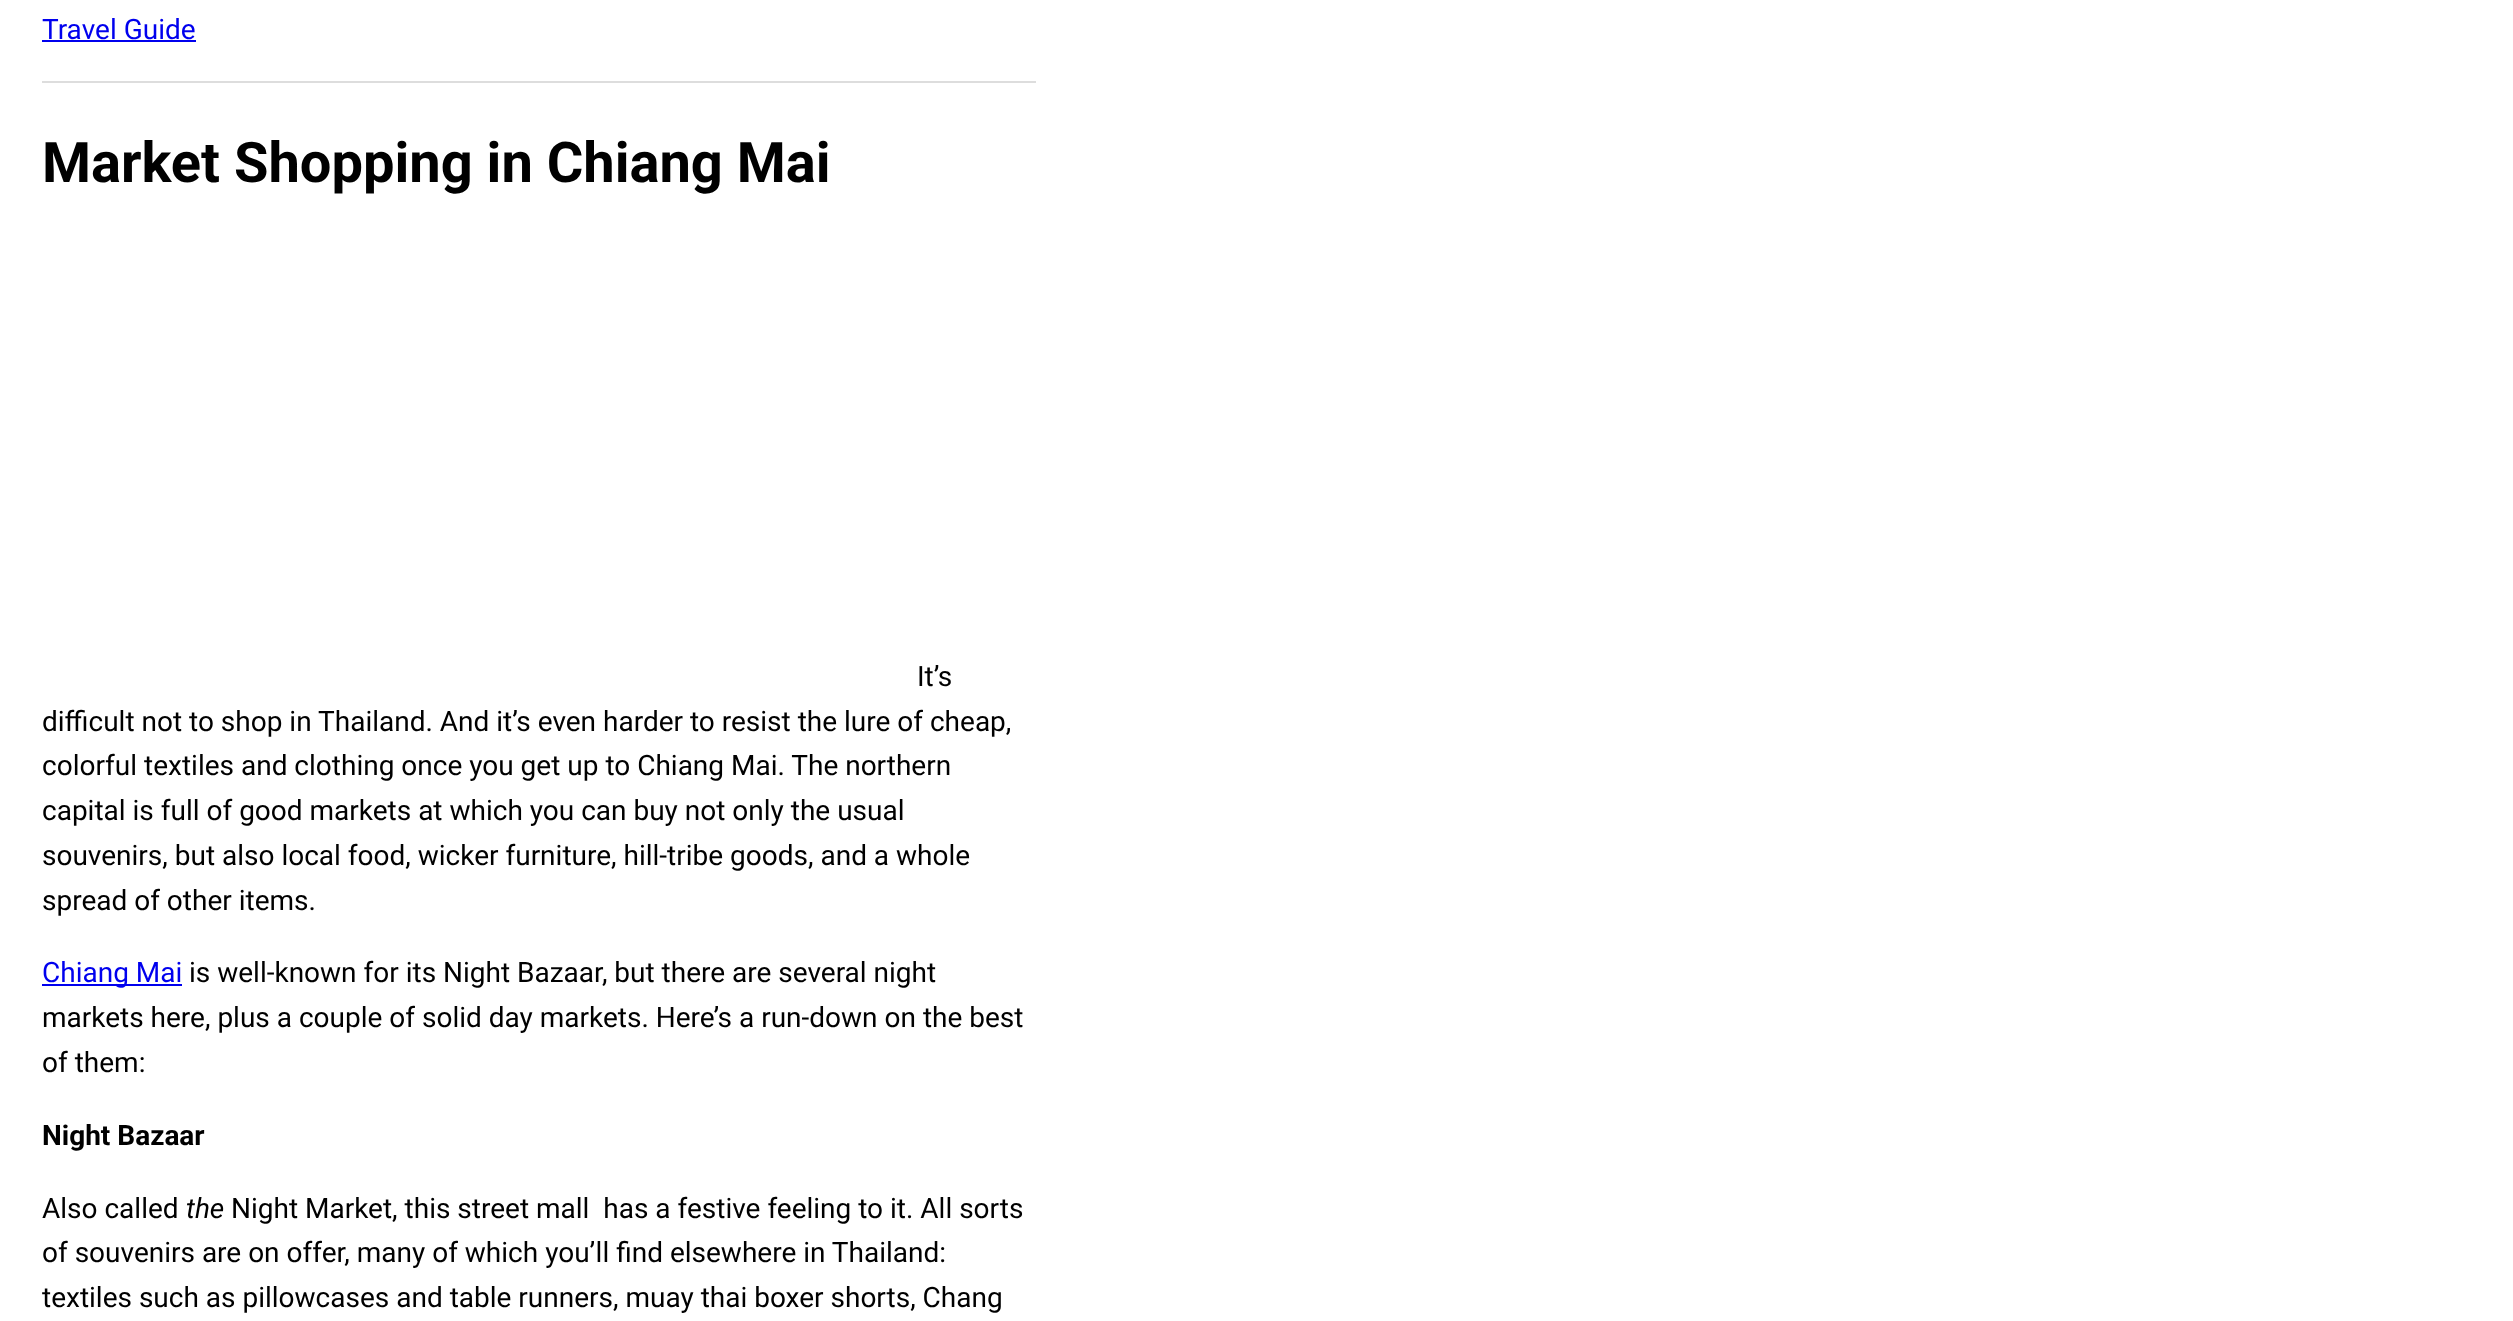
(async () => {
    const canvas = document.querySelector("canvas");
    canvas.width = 2513;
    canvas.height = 1321;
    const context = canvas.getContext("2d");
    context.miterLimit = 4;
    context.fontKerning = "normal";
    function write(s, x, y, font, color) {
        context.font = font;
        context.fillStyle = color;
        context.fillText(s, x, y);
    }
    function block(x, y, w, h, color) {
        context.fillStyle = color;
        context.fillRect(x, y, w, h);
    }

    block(0, 0, 2513, 1321, "rgb(255, 255, 255)");
    write("Travel Guide", 42, 39, "28px Roboto", "rgb(0, 0, 238)");
    block(42, 40, 154, 2, "rgb(0, 0, 238)");
    block(42, 81, 994, 2, "rgb(221, 221, 221)");
    write("Market Shopping in Chiang Mai", 42, 182, "bold 56px Roboto", "rgb(0, 0, 0)");
    write("It’s", 917, 686, "28px Roboto", "rgb(0, 0, 0)");
    write("difficult not to shop in Thailand. And it’s even harder to resist the lure of cheap,", 42, 731, "28px Roboto", "rgb(0, 0, 0)");
    write("colorful textiles and clothing once you get up to Chiang Mai. The northern", 42, 775, "28px Roboto", "rgb(0, 0, 0)");
    write("capital is full of good markets at which you can buy not only the usual", 42, 820, "28px Roboto", "rgb(0, 0, 0)");
    write("souvenirs, but also local food, wicker furniture, hill-tribe goods, and a whole", 42, 865, "28px Roboto", "rgb(0, 0, 0)");
    write("spread of other items.", 42, 910, "28px Roboto", "rgb(0, 0, 0)");
    block(42, 984, 140, 2, "rgb(0, 0, 238)");
    write("Chiang Mai", 42, 982, "28px Roboto", "rgb(0, 0, 238)");
    write("is well-known for its Night Bazaar, but there are several night", 189, 982, "28px Roboto", "rgb(0, 0, 0)");
    write("markets here, plus a couple of solid day markets. Here’s a run-down on the best", 42, 1027, "28px Roboto", "rgb(0, 0, 0)");
    write("of them:", 42, 1072, "28px Roboto", "rgb(0, 0, 0)");
    write("Night Bazaar", 42, 1145, "bold 28px Roboto", "rgb(0, 0, 0)");
    write("Also called", 42, 1218, "28px Roboto", "rgb(0, 0, 0)");
    write("the", 186, 1218, "italic 28px Roboto", "rgb(0, 0, 0)");
    write("Night Market, this street mall  has a festive feeling to it. All sorts", 231, 1218, "28px Roboto", "rgb(0, 0, 0)");
    write("of souvenirs are on offer, many of which you’ll find elsewhere in Thailand:", 42, 1262, "28px Roboto", "rgb(0, 0, 0)");
    write("textiles such as pillowcases and table runners, muay thai boxer shorts, Chang", 42, 1307, "28px Roboto", "rgb(0, 0, 0)");
})();
